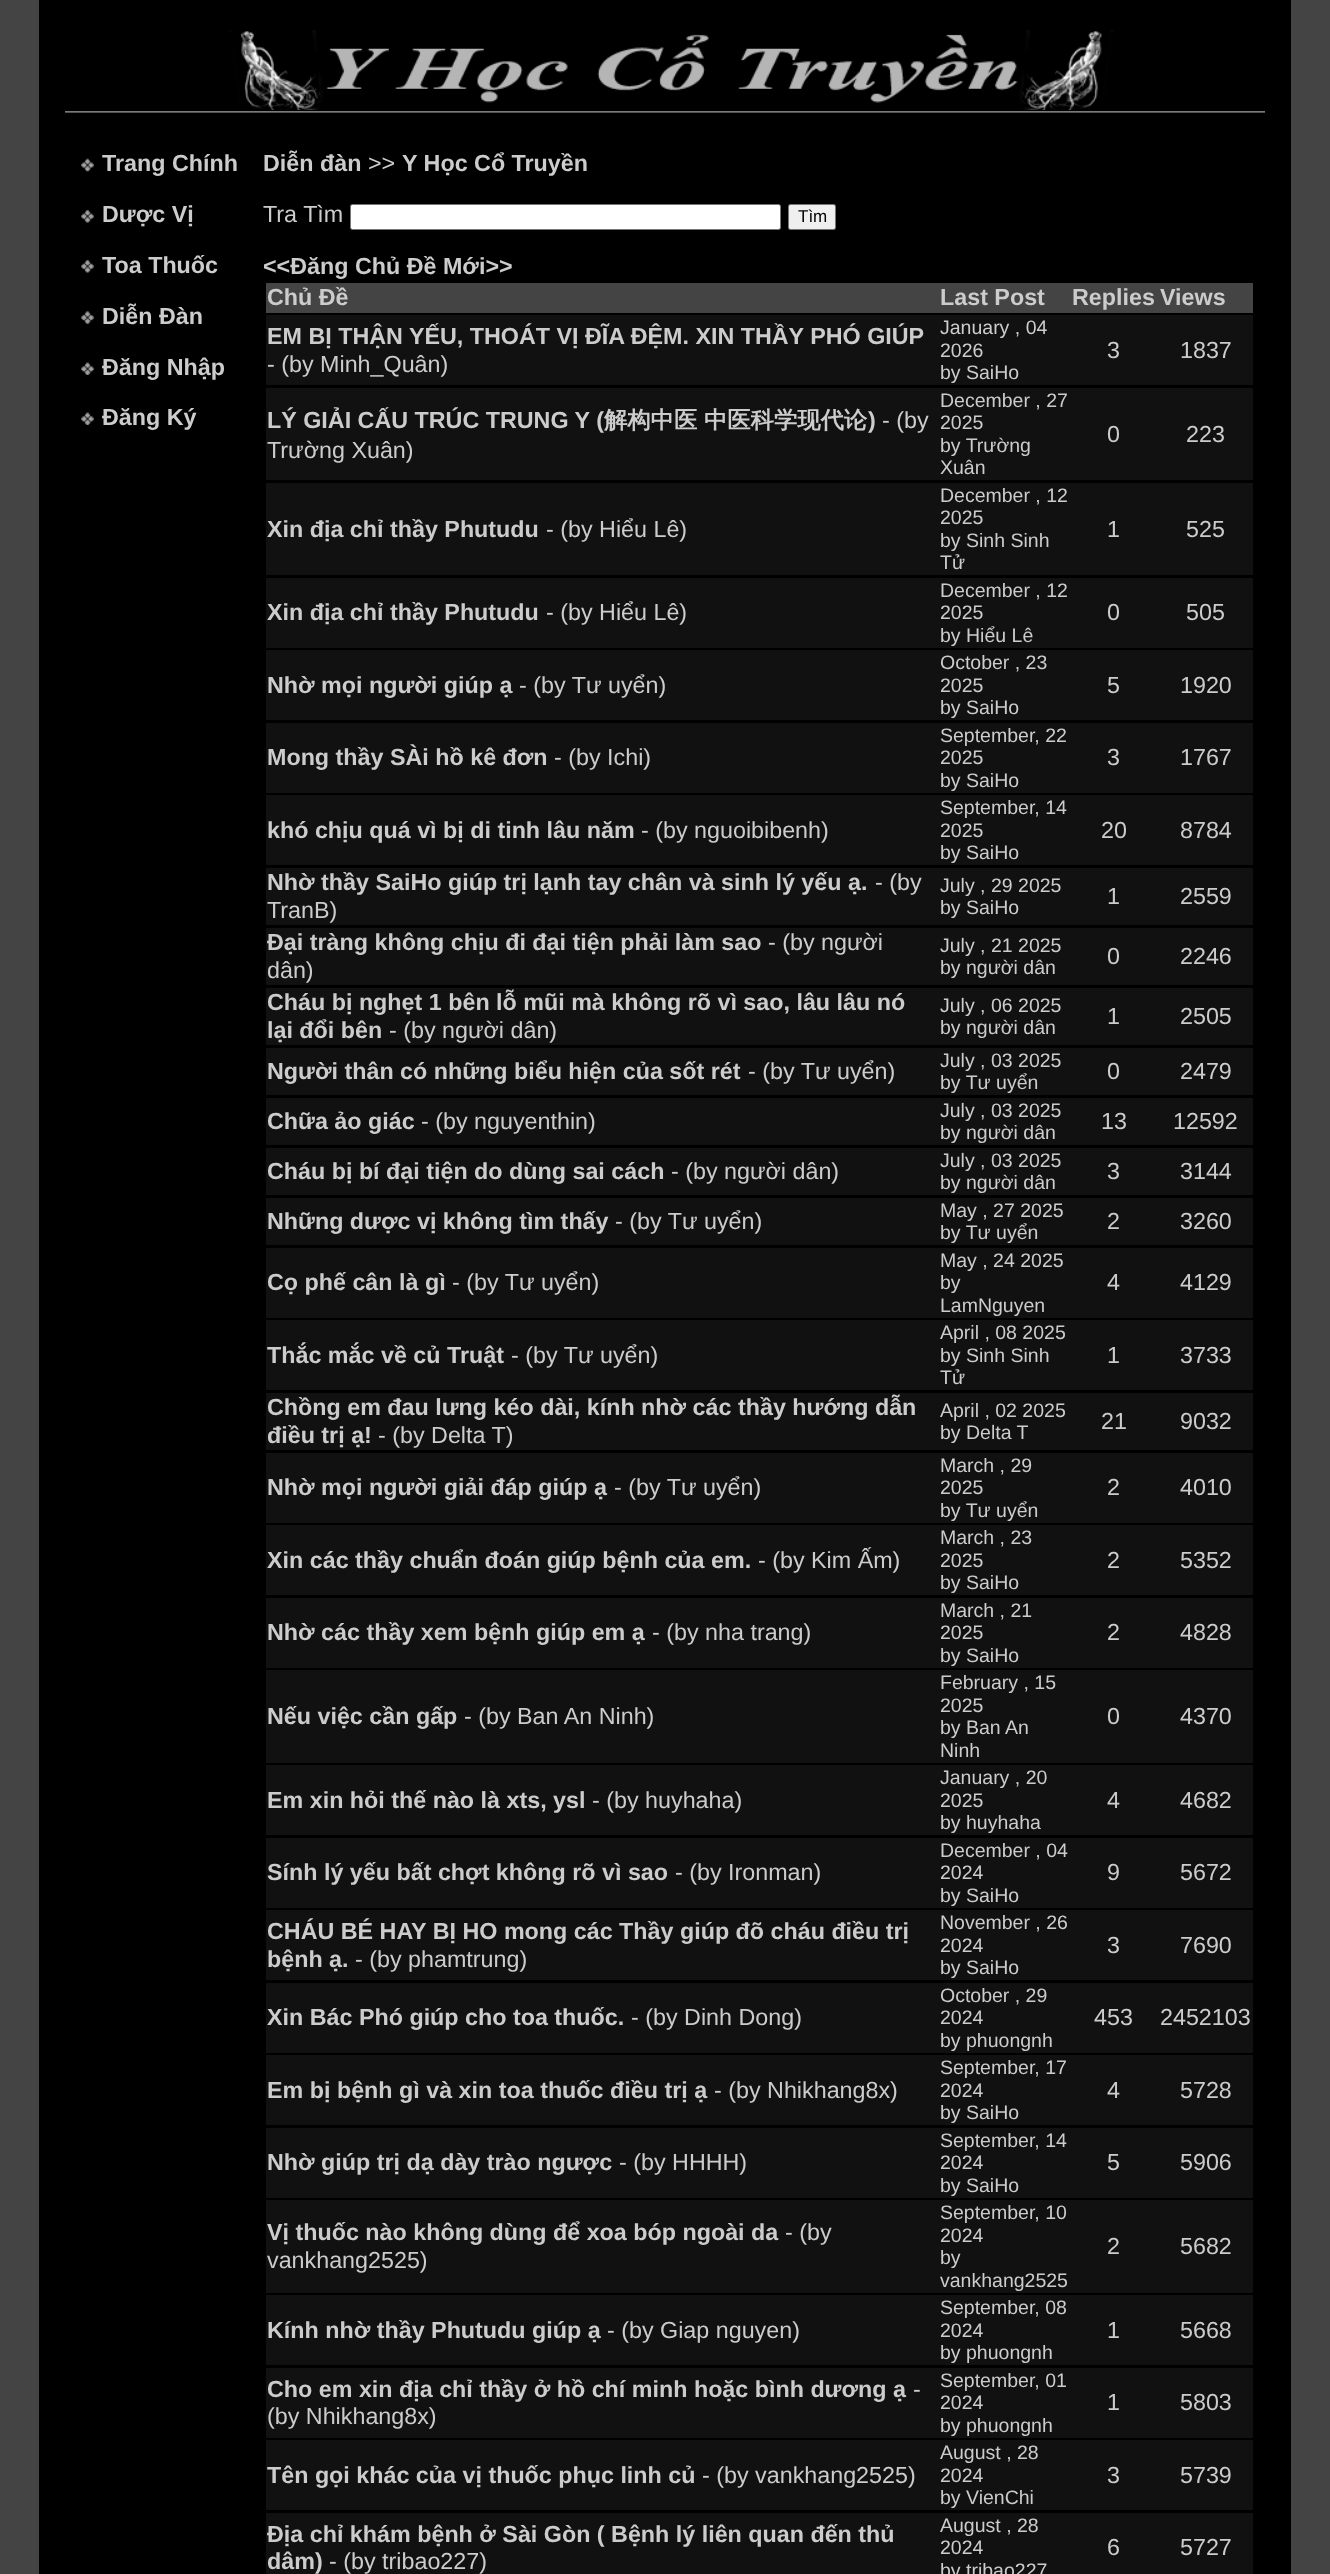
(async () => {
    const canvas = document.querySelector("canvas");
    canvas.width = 1330;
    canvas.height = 2574;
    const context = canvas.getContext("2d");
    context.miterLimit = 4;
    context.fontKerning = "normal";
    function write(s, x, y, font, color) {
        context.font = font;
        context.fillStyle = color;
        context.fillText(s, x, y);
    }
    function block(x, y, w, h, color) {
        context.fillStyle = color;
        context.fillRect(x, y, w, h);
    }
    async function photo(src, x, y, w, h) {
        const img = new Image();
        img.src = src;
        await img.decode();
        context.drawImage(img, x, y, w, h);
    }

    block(0, 0, 1330, 2574, "rgb(0, 0, 0)");
    block(0, 0, 39, 2574, "rgb(68, 68, 68)");
    await photo("media/1.png", 229, 30, 885, 80);
    await photo("media/2.png", 65, 111, 1200, 2);
    await photo("media/3.png", 81, 158, 14, 14);
    write("Trang Chính", 102, 171, "bold 23.3px Liberation Sans", "rgb(204, 204, 204)");
    await photo("media/4.png", 81, 210, 14, 13);
    write("Dược Vị", 102, 222, "bold 23.3px Liberation Sans", "rgb(204, 204, 204)");
    await photo("media/4.png", 81, 260, 14, 13);
    write("Toa Thuốc", 102, 273, "bold 23.3px Liberation Sans", "rgb(204, 204, 204)");
    await photo("media/5.png", 81, 311, 14, 13);
    write("Diễn Đàn", 102, 324, "bold 23.3px Liberation Sans", "rgb(204, 204, 204)");
    await photo("media/6.png", 81, 362, 14, 13);
    write("Đăng Nhập", 102, 375, "bold 23.3px Liberation Sans", "rgb(204, 204, 204)");
    await photo("media/6.png", 81, 412, 14, 13);
    write("Đăng Ký", 102, 425, "bold 23.3px Liberation Sans", "rgb(204, 204, 204)");
    write("Diễn đàn", 263, 171, "bold 23.3px Liberation Sans", "rgb(204, 204, 204)");
    write(">>", 368, 171, "23.3px Liberation Sans", "rgb(204, 204, 204)");
    write("Y Học Cổ Truyền", 402, 171, "bold 23.3px Liberation Sans", "rgb(204, 204, 204)");
    write("Tra Tìm", 263, 222, "23.3px Liberation Sans", "rgb(204, 204, 204)");
    context.fillStyle = "rgb(255, 255, 255)";
    context.beginPath();
    context.roundRect(350.5, 204.5, 430, 25, 2);
    context.fill();
    context.strokeStyle = "rgb(118, 118, 118)";
    context.stroke();
    context.fillStyle = "rgb(239, 239, 239)";
    context.beginPath();
    context.roundRect(788.5, 204.5, 47, 25, 2);
    context.fill();
    context.stroke();
    write("Tìm", 798, 222, "17px Liberation Sans", "rgb(0, 0, 0)");
    write("<<Đăng Chủ Đề Mới>>", 263, 274, "bold 23.3px Liberation Sans", "rgb(204, 204, 204)");
    block(266, 283, 987, 30, "rgb(68, 68, 68)");
    write("Chủ Đề", 267, 305, "bold 23.3px Liberation Sans", "rgb(204, 204, 204)");
    write("Last Post", 940, 305, "bold 23.3px Liberation Sans", "rgb(204, 204, 204)");
    write("Replies", 1072, 305, "bold 23.3px Liberation Sans", "rgb(204, 204, 204)");
    write("Views", 1160, 305, "bold 23.3px Liberation Sans", "rgb(204, 204, 204)");
    block(266, 315, 987, 70, "rgb(17, 17, 17)");
    write("EM BỊ THẬN YẾU, THOÁT VỊ ĐĨA ĐỆM. XIN THẦY PHÓ GIÚP", 267, 344, "bold 23.3px Liberation Sans", "rgb(204, 204, 204)");
    write("- (by Minh_Quân)", 267, 372, "23.3px Liberation Sans", "rgb(204, 204, 204)");
    write("January , 04", 940, 334, "19.5px Liberation Sans", "rgb(204, 204, 204)");
    write("2026", 940, 357, "19.5px Liberation Sans", "rgb(204, 204, 204)");
    write("by SaiHo", 940, 379, "19.5px Liberation Sans", "rgb(204, 204, 204)");
    write("3", 1107, 358, "23.3px Liberation Sans", "rgb(204, 204, 204)");
    write("1837", 1180, 358, "23.3px Liberation Sans", "rgb(204, 204, 204)");
    block(266, 388, 987, 92, "rgb(17, 17, 17)");
    write("LÝ GIẢI CẤU TRÚC TRUNG Y (", 267, 428, "bold 23.3px Liberation Sans", "rgb(204, 204, 204)");
    write("解构中医", 604, 428, "bold 23.3px WenQuanYi Zen Hei", "rgb(204, 204, 204)");
    write("中医科学现代论", 704, 428, "bold 23.3px WenQuanYi Zen Hei", "rgb(204, 204, 204)");
    write(")", 868, 428, "bold 23.3px Liberation Sans", "rgb(204, 204, 204)");
    write("- (by", 882, 428, "23.3px Liberation Sans", "rgb(204, 204, 204)");
    write("Trường Xuân)", 267, 458, "23.3px Liberation Sans", "rgb(204, 204, 204)");
    write("December , 27", 940, 407, "19.5px Liberation Sans", "rgb(204, 204, 204)");
    write("2025", 940, 429, "19.5px Liberation Sans", "rgb(204, 204, 204)");
    write("by Trường", 940, 452, "19.5px Liberation Sans", "rgb(204, 204, 204)");
    write("Xuân", 940, 474, "19.5px Liberation Sans", "rgb(204, 204, 204)");
    write("0", 1107, 442, "23.3px Liberation Sans", "rgb(204, 204, 204)");
    write("223", 1186, 442, "23.3px Liberation Sans", "rgb(204, 204, 204)");
    block(266, 483, 987, 92, "rgb(17, 17, 17)");
    write("Xin địa chỉ thầy Phutudu", 267, 537, "bold 23.3px Liberation Sans", "rgb(204, 204, 204)");
    write("- (by Hiểu Lê)", 546, 537, "23.3px Liberation Sans", "rgb(204, 204, 204)");
    write("December , 12", 940, 502, "19.5px Liberation Sans", "rgb(204, 204, 204)");
    write("2025", 940, 524, "19.5px Liberation Sans", "rgb(204, 204, 204)");
    write("by Sinh Sinh", 940, 547, "19.5px Liberation Sans", "rgb(204, 204, 204)");
    write("Tử", 940, 569, "19.5px Liberation Sans", "rgb(204, 204, 204)");
    write("1", 1107, 537, "23.3px Liberation Sans", "rgb(204, 204, 204)");
    write("525", 1186, 537, "23.3px Liberation Sans", "rgb(204, 204, 204)");
    block(266, 578, 987, 70, "rgb(17, 17, 17)");
    write("Xin địa chỉ thầy Phutudu", 267, 620, "bold 23.3px Liberation Sans", "rgb(204, 204, 204)");
    write("- (by Hiểu Lê)", 546, 620, "23.3px Liberation Sans", "rgb(204, 204, 204)");
    write("December , 12", 940, 597, "19.5px Liberation Sans", "rgb(204, 204, 204)");
    write("2025", 940, 619, "19.5px Liberation Sans", "rgb(204, 204, 204)");
    write("by Hiểu Lê", 940, 642, "19.5px Liberation Sans", "rgb(204, 204, 204)");
    write("0", 1107, 620, "23.3px Liberation Sans", "rgb(204, 204, 204)");
    write("505", 1186, 620, "23.3px Liberation Sans", "rgb(204, 204, 204)");
    block(266, 650, 987, 70, "rgb(17, 17, 17)");
    write("Nhờ mọi người giúp ạ", 267, 693, "bold 23.3px Liberation Sans", "rgb(204, 204, 204)");
    write("- (by Tư uyển)", 519, 693, "23.3px Liberation Sans", "rgb(204, 204, 204)");
    write("October , 23", 940, 669, "19.5px Liberation Sans", "rgb(204, 204, 204)");
    write("2025", 940, 692, "19.5px Liberation Sans", "rgb(204, 204, 204)");
    write("by SaiHo", 940, 714, "19.5px Liberation Sans", "rgb(204, 204, 204)");
    write("5", 1107, 693, "23.3px Liberation Sans", "rgb(204, 204, 204)");
    write("1920", 1180, 693, "23.3px Liberation Sans", "rgb(204, 204, 204)");
    block(266, 723, 987, 70, "rgb(17, 17, 17)");
    write("Mong thầy SÀi hồ kê đơn", 267, 765, "bold 23.3px Liberation Sans", "rgb(204, 204, 204)");
    write("- (by Ichi)", 554, 765, "23.3px Liberation Sans", "rgb(204, 204, 204)");
    write("September, 22", 940, 742, "19.5px Liberation Sans", "rgb(204, 204, 204)");
    write("2025", 940, 764, "19.5px Liberation Sans", "rgb(204, 204, 204)");
    write("by SaiHo", 940, 787, "19.5px Liberation Sans", "rgb(204, 204, 204)");
    write("3", 1107, 765, "23.3px Liberation Sans", "rgb(204, 204, 204)");
    write("1767", 1180, 765, "23.3px Liberation Sans", "rgb(204, 204, 204)");
    block(266, 795, 987, 70, "rgb(17, 17, 17)");
    write("khó chịu quá vì bị di tinh lâu năm", 267, 838, "bold 23.3px Liberation Sans", "rgb(204, 204, 204)");
    write("- (by nguoibibenh)", 641, 838, "23.3px Liberation Sans", "rgb(204, 204, 204)");
    write("September, 14", 940, 814, "19.5px Liberation Sans", "rgb(204, 204, 204)");
    write("2025", 940, 837, "19.5px Liberation Sans", "rgb(204, 204, 204)");
    write("by SaiHo", 940, 859, "19.5px Liberation Sans", "rgb(204, 204, 204)");
    write("20", 1101, 838, "23.3px Liberation Sans", "rgb(204, 204, 204)");
    write("8784", 1180, 838, "23.3px Liberation Sans", "rgb(204, 204, 204)");
    block(266, 868, 987, 57, "rgb(17, 17, 17)");
    write("Nhờ thầy SaiHo giúp trị lạnh tay chân và sinh lý yếu ạ.", 267, 890, "bold 23.3px Liberation Sans", "rgb(204, 204, 204)");
    write("- (by", 875, 890, "23.3px Liberation Sans", "rgb(204, 204, 204)");
    write("TranB)", 267, 918, "23.3px Liberation Sans", "rgb(204, 204, 204)");
    write("July , 29 2025", 940, 892, "19.5px Liberation Sans", "rgb(204, 204, 204)");
    write("by SaiHo", 940, 914, "19.5px Liberation Sans", "rgb(204, 204, 204)");
    write("1", 1107, 904, "23.3px Liberation Sans", "rgb(204, 204, 204)");
    write("2559", 1180, 904, "23.3px Liberation Sans", "rgb(204, 204, 204)");
    block(266, 928, 987, 57, "rgb(17, 17, 17)");
    write("Đại tràng không chịu đi đại tiện phải làm sao", 267, 950, "bold 23.3px Liberation Sans", "rgb(204, 204, 204)");
    write("- (by người", 768, 950, "23.3px Liberation Sans", "rgb(204, 204, 204)");
    write("dân)", 267, 978, "23.3px Liberation Sans", "rgb(204, 204, 204)");
    write("July , 21 2025", 940, 952, "19.5px Liberation Sans", "rgb(204, 204, 204)");
    write("by người dân", 940, 974, "19.5px Liberation Sans", "rgb(204, 204, 204)");
    write("0", 1107, 964, "23.3px Liberation Sans", "rgb(204, 204, 204)");
    write("2246", 1180, 964, "23.3px Liberation Sans", "rgb(204, 204, 204)");
    block(266, 988, 987, 57, "rgb(17, 17, 17)");
    write("Cháu bị nghẹt 1 bên lỗ mũi mà không rõ vì sao, lâu lâu nó", 267, 1010, "bold 23.3px Liberation Sans", "rgb(204, 204, 204)");
    write("lại đổi bên", 267, 1038, "bold 23.3px Liberation Sans", "rgb(204, 204, 204)");
    write("- (by người dân)", 389, 1038, "23.3px Liberation Sans", "rgb(204, 204, 204)");
    write("July , 06 2025", 940, 1012, "19.5px Liberation Sans", "rgb(204, 204, 204)");
    write("by người dân", 940, 1034, "19.5px Liberation Sans", "rgb(204, 204, 204)");
    write("1", 1107, 1024, "23.3px Liberation Sans", "rgb(204, 204, 204)");
    write("2505", 1180, 1024, "23.3px Liberation Sans", "rgb(204, 204, 204)");
    block(266, 1048, 987, 47, "rgb(17, 17, 17)");
    write("Người thân có những biểu hiện của sốt rét", 267, 1079, "bold 23.3px Liberation Sans", "rgb(204, 204, 204)");
    write("- (by Tư uyển)", 748, 1079, "23.3px Liberation Sans", "rgb(204, 204, 204)");
    write("July , 03 2025", 940, 1067, "19.5px Liberation Sans", "rgb(204, 204, 204)");
    write("by Tư uyển", 940, 1089, "19.5px Liberation Sans", "rgb(204, 204, 204)");
    write("0", 1107, 1079, "23.3px Liberation Sans", "rgb(204, 204, 204)");
    write("2479", 1180, 1079, "23.3px Liberation Sans", "rgb(204, 204, 204)");
    block(266, 1098, 987, 47, "rgb(17, 17, 17)");
    write("Chữa ảo giác", 267, 1129, "bold 23.3px Liberation Sans", "rgb(204, 204, 204)");
    write("- (by nguyenthin)", 421, 1129, "23.3px Liberation Sans", "rgb(204, 204, 204)");
    write("July , 03 2025", 940, 1117, "19.5px Liberation Sans", "rgb(204, 204, 204)");
    write("by người dân", 940, 1139, "19.5px Liberation Sans", "rgb(204, 204, 204)");
    write("13", 1101, 1129, "23.3px Liberation Sans", "rgb(204, 204, 204)");
    write("12592", 1173, 1129, "23.3px Liberation Sans", "rgb(204, 204, 204)");
    block(266, 1148, 987, 47, "rgb(17, 17, 17)");
    write("Cháu bị bí đại tiện do dùng sai cách", 267, 1179, "bold 23.3px Liberation Sans", "rgb(204, 204, 204)");
    write("- (by người dân)", 671, 1179, "23.3px Liberation Sans", "rgb(204, 204, 204)");
    write("July , 03 2025", 940, 1167, "19.5px Liberation Sans", "rgb(204, 204, 204)");
    write("by người dân", 940, 1189, "19.5px Liberation Sans", "rgb(204, 204, 204)");
    write("3", 1107, 1179, "23.3px Liberation Sans", "rgb(204, 204, 204)");
    write("3144", 1180, 1179, "23.3px Liberation Sans", "rgb(204, 204, 204)");
    block(266, 1198, 987, 47, "rgb(17, 17, 17)");
    write("Những dược vị không tìm thấy", 267, 1229, "bold 23.3px Liberation Sans", "rgb(204, 204, 204)");
    write("- (by Tư uyển)", 615, 1229, "23.3px Liberation Sans", "rgb(204, 204, 204)");
    write("May , 27 2025", 940, 1217, "19.5px Liberation Sans", "rgb(204, 204, 204)");
    write("by Tư uyển", 940, 1239, "19.5px Liberation Sans", "rgb(204, 204, 204)");
    write("2", 1107, 1229, "23.3px Liberation Sans", "rgb(204, 204, 204)");
    write("3260", 1180, 1229, "23.3px Liberation Sans", "rgb(204, 204, 204)");
    block(266, 1248, 987, 70, "rgb(17, 17, 17)");
    write("Cọ phế cân là gì", 267, 1290, "bold 23.3px Liberation Sans", "rgb(204, 204, 204)");
    write("- (by Tư uyển)", 452, 1290, "23.3px Liberation Sans", "rgb(204, 204, 204)");
    write("May , 24 2025", 940, 1267, "19.5px Liberation Sans", "rgb(204, 204, 204)");
    write("by", 940, 1289, "19.5px Liberation Sans", "rgb(204, 204, 204)");
    write("LamNguyen", 940, 1312, "19.5px Liberation Sans", "rgb(204, 204, 204)");
    write("4", 1107, 1290, "23.3px Liberation Sans", "rgb(204, 204, 204)");
    write("4129", 1180, 1290, "23.3px Liberation Sans", "rgb(204, 204, 204)");
    block(266, 1320, 987, 70, "rgb(17, 17, 17)");
    write("Thắc mắc về củ Truật", 267, 1363, "bold 23.3px Liberation Sans", "rgb(204, 204, 204)");
    write("- (by Tư uyển)", 511, 1363, "23.3px Liberation Sans", "rgb(204, 204, 204)");
    write("April , 08 2025", 940, 1339, "19.5px Liberation Sans", "rgb(204, 204, 204)");
    write("by Sinh Sinh", 940, 1362, "19.5px Liberation Sans", "rgb(204, 204, 204)");
    write("Tử", 940, 1384, "19.5px Liberation Sans", "rgb(204, 204, 204)");
    write("1", 1107, 1363, "23.3px Liberation Sans", "rgb(204, 204, 204)");
    write("3733", 1180, 1363, "23.3px Liberation Sans", "rgb(204, 204, 204)");
    block(266, 1393, 987, 57, "rgb(17, 17, 17)");
    write("Chồng em đau lưng kéo dài, kính nhờ các thầy hướng dẫn", 267, 1415, "bold 23.3px Liberation Sans", "rgb(204, 204, 204)");
    write("điều trị ạ!", 267, 1443, "bold 23.3px Liberation Sans", "rgb(204, 204, 204)");
    write("- (by Delta T)", 378, 1443, "23.3px Liberation Sans", "rgb(204, 204, 204)");
    write("April , 02 2025", 940, 1417, "19.5px Liberation Sans", "rgb(204, 204, 204)");
    write("by Delta T", 940, 1439, "19.5px Liberation Sans", "rgb(204, 204, 204)");
    write("21", 1101, 1429, "23.3px Liberation Sans", "rgb(204, 204, 204)");
    write("9032", 1180, 1429, "23.3px Liberation Sans", "rgb(204, 204, 204)");
    block(266, 1453, 987, 70, "rgb(17, 17, 17)");
    write("Nhờ mọi người giải đáp giúp ạ", 267, 1495, "bold 23.3px Liberation Sans", "rgb(204, 204, 204)");
    write("- (by Tư uyển)", 614, 1495, "23.3px Liberation Sans", "rgb(204, 204, 204)");
    write("March , 29", 940, 1472, "19.5px Liberation Sans", "rgb(204, 204, 204)");
    write("2025", 940, 1494, "19.5px Liberation Sans", "rgb(204, 204, 204)");
    write("by Tư uyển", 940, 1517, "19.5px Liberation Sans", "rgb(204, 204, 204)");
    write("2", 1107, 1495, "23.3px Liberation Sans", "rgb(204, 204, 204)");
    write("4010", 1180, 1495, "23.3px Liberation Sans", "rgb(204, 204, 204)");
    block(266, 1525, 987, 70, "rgb(17, 17, 17)");
    write("Xin các thầy chuẩn đoán giúp bệnh của em.", 267, 1568, "bold 23.3px Liberation Sans", "rgb(204, 204, 204)");
    write("- (by Kim Ấm)", 758, 1568, "23.3px Liberation Sans", "rgb(204, 204, 204)");
    write("March , 23", 940, 1544, "19.5px Liberation Sans", "rgb(204, 204, 204)");
    write("2025", 940, 1567, "19.5px Liberation Sans", "rgb(204, 204, 204)");
    write("by SaiHo", 940, 1589, "19.5px Liberation Sans", "rgb(204, 204, 204)");
    write("2", 1107, 1568, "23.3px Liberation Sans", "rgb(204, 204, 204)");
    write("5352", 1180, 1568, "23.3px Liberation Sans", "rgb(204, 204, 204)");
    block(266, 1598, 987, 70, "rgb(17, 17, 17)");
    write("Nhờ các thầy xem bệnh giúp em ạ", 267, 1640, "bold 23.3px Liberation Sans", "rgb(204, 204, 204)");
    write("- (by nha trang)", 652, 1640, "23.3px Liberation Sans", "rgb(204, 204, 204)");
    write("March , 21", 940, 1617, "19.5px Liberation Sans", "rgb(204, 204, 204)");
    write("2025", 940, 1639, "19.5px Liberation Sans", "rgb(204, 204, 204)");
    write("by SaiHo", 940, 1662, "19.5px Liberation Sans", "rgb(204, 204, 204)");
    write("2", 1107, 1640, "23.3px Liberation Sans", "rgb(204, 204, 204)");
    write("4828", 1180, 1640, "23.3px Liberation Sans", "rgb(204, 204, 204)");
    block(266, 1670, 987, 93, "rgb(17, 17, 17)");
    write("Nếu việc cần gấp", 267, 1724, "bold 23.3px Liberation Sans", "rgb(204, 204, 204)");
    write("- (by Ban An Ninh)", 464, 1724, "23.3px Liberation Sans", "rgb(204, 204, 204)");
    write("February , 15", 940, 1689, "19.5px Liberation Sans", "rgb(204, 204, 204)");
    write("2025", 940, 1712, "19.5px Liberation Sans", "rgb(204, 204, 204)");
    write("by Ban An", 940, 1734, "19.5px Liberation Sans", "rgb(204, 204, 204)");
    write("Ninh", 940, 1757, "19.5px Liberation Sans", "rgb(204, 204, 204)");
    write("0", 1107, 1724, "23.3px Liberation Sans", "rgb(204, 204, 204)");
    write("4370", 1180, 1724, "23.3px Liberation Sans", "rgb(204, 204, 204)");
    block(266, 1765, 987, 70, "rgb(17, 17, 17)");
    write("Em xin hỏi thế nào là xts, ysl", 267, 1808, "bold 23.3px Liberation Sans", "rgb(204, 204, 204)");
    write("- (by huyhaha)", 592, 1808, "23.3px Liberation Sans", "rgb(204, 204, 204)");
    write("January , 20", 940, 1784, "19.5px Liberation Sans", "rgb(204, 204, 204)");
    write("2025", 940, 1807, "19.5px Liberation Sans", "rgb(204, 204, 204)");
    write("by huyhaha", 940, 1829, "19.5px Liberation Sans", "rgb(204, 204, 204)");
    write("4", 1107, 1808, "23.3px Liberation Sans", "rgb(204, 204, 204)");
    write("4682", 1180, 1808, "23.3px Liberation Sans", "rgb(204, 204, 204)");
    block(266, 1838, 987, 70, "rgb(17, 17, 17)");
    write("Sính lý yếu bất chợt không rõ vì sao", 267, 1880, "bold 23.3px Liberation Sans", "rgb(204, 204, 204)");
    write("- (by Ironman)", 675, 1880, "23.3px Liberation Sans", "rgb(204, 204, 204)");
    write("December , 04", 940, 1857, "19.5px Liberation Sans", "rgb(204, 204, 204)");
    write("2024", 940, 1879, "19.5px Liberation Sans", "rgb(204, 204, 204)");
    write("by SaiHo", 940, 1902, "19.5px Liberation Sans", "rgb(204, 204, 204)");
    write("9", 1107, 1880, "23.3px Liberation Sans", "rgb(204, 204, 204)");
    write("5672", 1180, 1880, "23.3px Liberation Sans", "rgb(204, 204, 204)");
    block(266, 1910, 987, 70, "rgb(17, 17, 17)");
    write("CHÁU BÉ HAY BỊ HO mong các Thầy giúp đõ cháu điều trị", 267, 1939, "bold 23.3px Liberation Sans", "rgb(204, 204, 204)");
    write("bệnh ạ.", 267, 1967, "bold 23.3px Liberation Sans", "rgb(204, 204, 204)");
    write("- (by phamtrung)", 355, 1967, "23.3px Liberation Sans", "rgb(204, 204, 204)");
    write("November , 26", 940, 1929, "19.5px Liberation Sans", "rgb(204, 204, 204)");
    write("2024", 940, 1952, "19.5px Liberation Sans", "rgb(204, 204, 204)");
    write("by SaiHo", 940, 1974, "19.5px Liberation Sans", "rgb(204, 204, 204)");
    write("3", 1107, 1953, "23.3px Liberation Sans", "rgb(204, 204, 204)");
    write("7690", 1180, 1953, "23.3px Liberation Sans", "rgb(204, 204, 204)");
    block(266, 1983, 987, 70, "rgb(17, 17, 17)");
    write("Xin Bác Phó giúp cho toa thuốc.", 267, 2025, "bold 23.3px Liberation Sans", "rgb(204, 204, 204)");
    write("- (by Dinh Dong)", 631, 2025, "23.3px Liberation Sans", "rgb(204, 204, 204)");
    write("October , 29", 940, 2002, "19.5px Liberation Sans", "rgb(204, 204, 204)");
    write("2024", 940, 2024, "19.5px Liberation Sans", "rgb(204, 204, 204)");
    write("by phuongnh", 940, 2047, "19.5px Liberation Sans", "rgb(204, 204, 204)");
    write("453", 1094, 2025, "23.3px Liberation Sans", "rgb(204, 204, 204)");
    write("2452103", 1160, 2025, "23.3px Liberation Sans", "rgb(204, 204, 204)");
    block(266, 2055, 987, 70, "rgb(17, 17, 17)");
    write("Em bị bệnh gì và xin toa thuốc điều trị ạ", 267, 2098, "bold 23.3px Liberation Sans", "rgb(204, 204, 204)");
    write("- (by Nhikhang8x)", 714, 2098, "23.3px Liberation Sans", "rgb(204, 204, 204)");
    write("September, 17", 940, 2074, "19.5px Liberation Sans", "rgb(204, 204, 204)");
    write("2024", 940, 2097, "19.5px Liberation Sans", "rgb(204, 204, 204)");
    write("by SaiHo", 940, 2119, "19.5px Liberation Sans", "rgb(204, 204, 204)");
    write("4", 1107, 2098, "23.3px Liberation Sans", "rgb(204, 204, 204)");
    write("5728", 1180, 2098, "23.3px Liberation Sans", "rgb(204, 204, 204)");
    block(266, 2128, 987, 70, "rgb(17, 17, 17)");
    write("Nhờ giúp trị dạ dày trào ngược", 267, 2170, "bold 23.3px Liberation Sans", "rgb(204, 204, 204)");
    write("- (by HHHH)", 619, 2170, "23.3px Liberation Sans", "rgb(204, 204, 204)");
    write("September, 14", 940, 2147, "19.5px Liberation Sans", "rgb(204, 204, 204)");
    write("2024", 940, 2169, "19.5px Liberation Sans", "rgb(204, 204, 204)");
    write("by SaiHo", 940, 2192, "19.5px Liberation Sans", "rgb(204, 204, 204)");
    write("5", 1107, 2170, "23.3px Liberation Sans", "rgb(204, 204, 204)");
    write("5906", 1180, 2170, "23.3px Liberation Sans", "rgb(204, 204, 204)");
    block(266, 2200, 987, 93, "rgb(17, 17, 17)");
    write("Vị thuốc nào không dùng để xoa bóp ngoài da", 267, 2240, "bold 23.3px Liberation Sans", "rgb(204, 204, 204)");
    write("- (by", 785, 2240, "23.3px Liberation Sans", "rgb(204, 204, 204)");
    write("vankhang2525)", 267, 2268, "23.3px Liberation Sans", "rgb(204, 204, 204)");
    write("September, 10", 940, 2219, "19.5px Liberation Sans", "rgb(204, 204, 204)");
    write("2024", 940, 2242, "19.5px Liberation Sans", "rgb(204, 204, 204)");
    write("by", 940, 2264, "19.5px Liberation Sans", "rgb(204, 204, 204)");
    write("vankhang2525", 940, 2287, "19.5px Liberation Sans", "rgb(204, 204, 204)");
    write("2", 1107, 2254, "23.3px Liberation Sans", "rgb(204, 204, 204)");
    write("5682", 1180, 2254, "23.3px Liberation Sans", "rgb(204, 204, 204)");
    block(266, 2295, 987, 70, "rgb(17, 17, 17)");
    write("Kính nhờ thầy Phutudu giúp ạ", 267, 2338, "bold 23.3px Liberation Sans", "rgb(204, 204, 204)");
    write("- (by Giap nguyen)", 607, 2338, "23.3px Liberation Sans", "rgb(204, 204, 204)");
    write("September, 08", 940, 2314, "19.5px Liberation Sans", "rgb(204, 204, 204)");
    write("2024", 940, 2337, "19.5px Liberation Sans", "rgb(204, 204, 204)");
    write("by phuongnh", 940, 2359, "19.5px Liberation Sans", "rgb(204, 204, 204)");
    write("1", 1107, 2338, "23.3px Liberation Sans", "rgb(204, 204, 204)");
    write("5668", 1180, 2338, "23.3px Liberation Sans", "rgb(204, 204, 204)");
    block(266, 2368, 987, 70, "rgb(17, 17, 17)");
    write("Cho em xin địa chỉ thầy ở hồ chí minh hoặc bình dương ạ", 267, 2397, "bold 23.3px Liberation Sans", "rgb(204, 204, 204)");
    write("-", 913, 2397, "23.3px Liberation Sans", "rgb(204, 204, 204)");
    write("(by Nhikhang8x)", 267, 2424, "23.3px Liberation Sans", "rgb(204, 204, 204)");
    write("September, 01", 940, 2387, "19.5px Liberation Sans", "rgb(204, 204, 204)");
    write("2024", 940, 2409, "19.5px Liberation Sans", "rgb(204, 204, 204)");
    write("by phuongnh", 940, 2432, "19.5px Liberation Sans", "rgb(204, 204, 204)");
    write("1", 1107, 2410, "23.3px Liberation Sans", "rgb(204, 204, 204)");
    write("5803", 1180, 2410, "23.3px Liberation Sans", "rgb(204, 204, 204)");
    block(266, 2440, 987, 70, "rgb(17, 17, 17)");
    write("Tên gọi khác của vị thuốc phục linh củ", 267, 2483, "bold 23.3px Liberation Sans", "rgb(204, 204, 204)");
    write("- (by vankhang2525)", 702, 2483, "23.3px Liberation Sans", "rgb(204, 204, 204)");
    write("August , 28", 940, 2459, "19.5px Liberation Sans", "rgb(204, 204, 204)");
    write("2024", 940, 2482, "19.5px Liberation Sans", "rgb(204, 204, 204)");
    write("by VienChi", 940, 2504, "19.5px Liberation Sans", "rgb(204, 204, 204)");
    write("3", 1107, 2483, "23.3px Liberation Sans", "rgb(204, 204, 204)");
    write("5739", 1180, 2483, "23.3px Liberation Sans", "rgb(204, 204, 204)");
    block(266, 2513, 987, 61, "rgb(17, 17, 17)");
    write("Địa chỉ khám bệnh ở Sài Gòn ( Bệnh lý liên quan đến thủ", 267, 2542, "bold 23.3px Liberation Sans", "rgb(204, 204, 204)");
    write("dâm)", 267, 2569, "bold 23.3px Liberation Sans", "rgb(204, 204, 204)");
    write("- (by tribao227)", 329, 2569, "23.3px Liberation Sans", "rgb(204, 204, 204)");
    write("August , 28", 940, 2532, "19.5px Liberation Sans", "rgb(204, 204, 204)");
    write("2024", 940, 2554, "19.5px Liberation Sans", "rgb(204, 204, 204)");
    write("by tribao227", 940, 2577, "19.5px Liberation Sans", "rgb(204, 204, 204)");
    write("6", 1107, 2555, "23.3px Liberation Sans", "rgb(204, 204, 204)");
    write("5727", 1180, 2555, "23.3px Liberation Sans", "rgb(204, 204, 204)");
    block(1291, 0, 39, 2574, "rgb(68, 68, 68)");
})();
